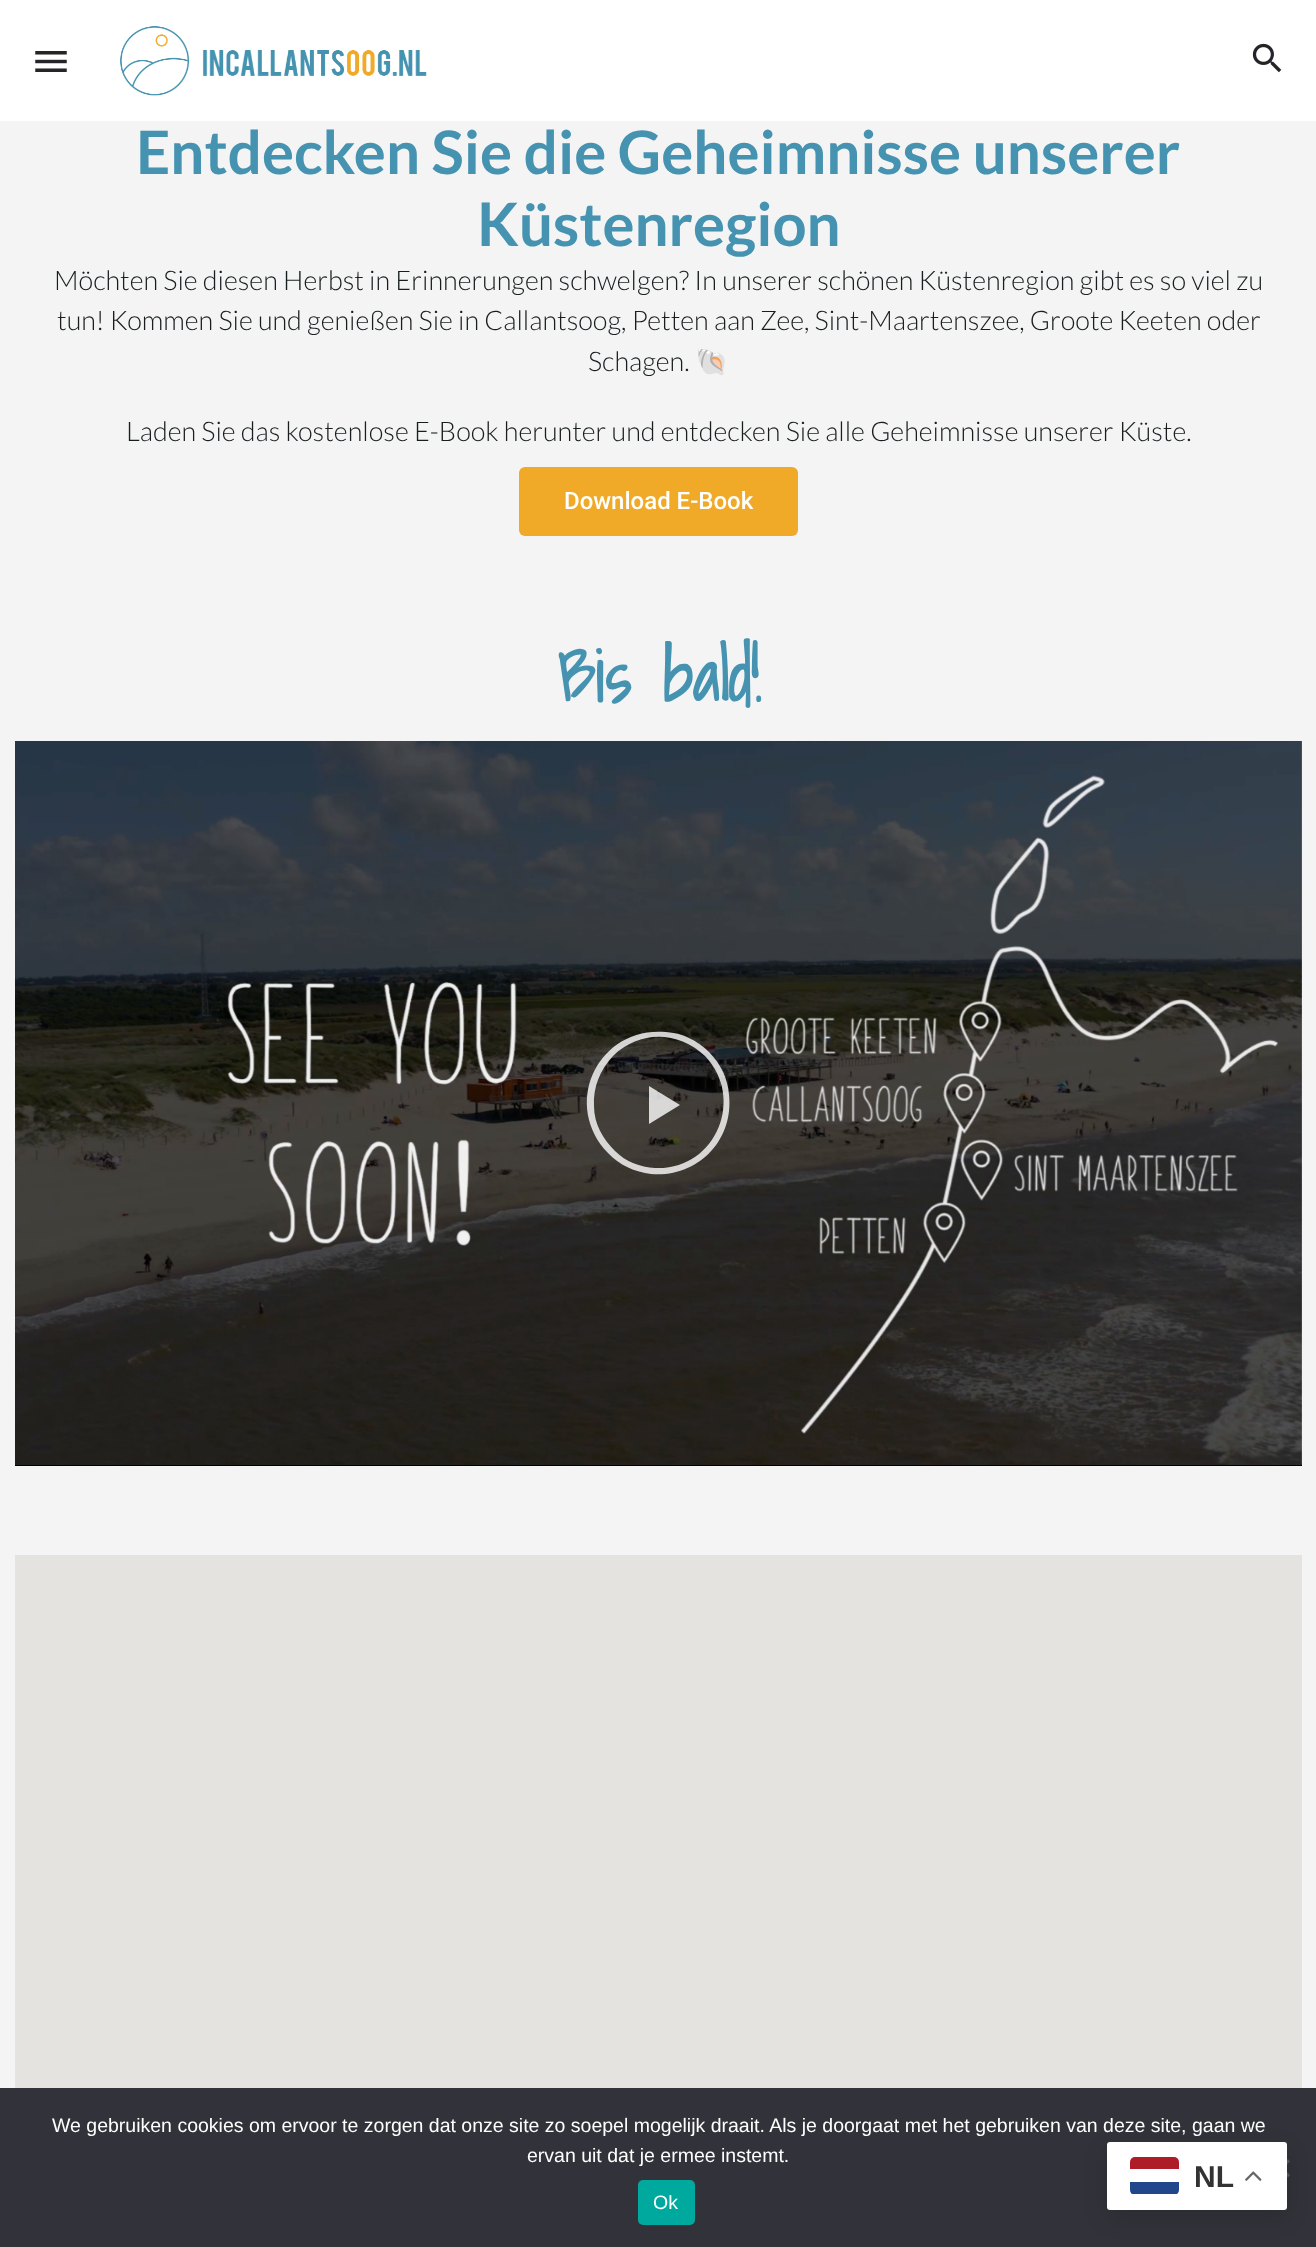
(async () => {
    const canvas = document.querySelector("canvas");
    canvas.width = 1316;
    canvas.height = 2247;
    const context = canvas.getContext("2d");
    context.miterLimit = 4;
    context.fontKerning = "normal";
    function write(s, x, y, font, color) {
        context.font = font;
        context.fillStyle = color;
        context.fillText(s, x, y);
    }
    function block(x, y, w, h, color) {
        context.fillStyle = color;
        context.fillRect(x, y, w, h);
    }
    function card(x, y, w, h, r, color) {
        context.fillStyle = color;
        context.beginPath();
        context.roundRect(x, y, w, h, r);
        context.fill();
    }
    async function photo(src, x, y, w, h) {
        const img = new Image();
        img.src = src;
        await img.decode();
        context.drawImage(img, x, y, w, h);
    }

    block(0, 0, 1316, 2247, "rgb(244, 244, 244)");
    block(0, 0, 1316, 121, "rgb(255, 255, 255)");
    await photo("media/1.png", 35, 51, 32, 21);
    await photo("media/2.png", 120, 26, 307, 70);
    await photo("media/3.png", 1252, 43, 30, 30);
    write("Entdecken Sie die Geheimnisse unserer", 136, 174, "bold 60px Lato", "rgb(69, 147, 176)");
    write("Küstenregion", 477, 246, "bold 60px Lato", "rgb(69, 147, 176)");
    write("Möchten Sie diesen Herbst in Erinnerungen schwelgen? In unserer schönen Küstenregion gibt es so viel zu", 54, 290, "300 27px Lato", "rgb(24, 29, 31)");
    write("tun! Kommen Sie und genießen Sie in Callantsoog, Petten aan Zee, Sint-Maartenszee, Groote Keeten oder", 57, 330, "300 27px Lato", "rgb(24, 29, 31)");
    write("Schagen.", 588, 371, "300 27px Lato", "rgb(24, 29, 31)");
    write("🐚", 695, 371, "27px Noto Color Emoji", "rgb(24, 29, 31)");
    write("Laden Sie das kostenlose E-Book herunter und entdecken Sie alle Geheimnisse unserer Küste.", 126, 441, "300 27px Lato", "rgb(24, 29, 31)");
    card(519, 467, 279, 69, 6, "rgb(241, 170, 40)");
    write("Download E-Book", 564, 509, "500 24px Roboto", "rgb(255, 255, 255)");
    write("Bis bald!", 557, 702, "bold 70.5px Shadows Into Light", "rgb(69, 147, 176)");
    block(15, 1464, 1287, 2, "rgb(0, 0, 0)");
    await photo("media/4.png", 1301, 741, 1, 724);
    await photo("media/5.png", 15, 741, 1287, 724);
    context.fillStyle = "rgba(255, 255, 255, 0.8)";
    context.beginPath();
    context.moveTo(709, 1052);
    context.bezierCurveTo(697, 1040, 682, 1033, 666, 1032);
    context.bezierCurveTo(598, 1026, 561, 1104, 608, 1153);
    context.bezierCurveTo(619, 1165, 635, 1172, 651, 1174);
    context.bezierCurveTo(697, 1178, 734, 1141, 729, 1095);
    context.bezierCurveTo(728, 1079, 721, 1064, 709, 1052);
    context.closePath();
    context.moveTo(705, 1056);
    context.bezierCurveTo(746, 1099, 715, 1171, 655, 1168);
    context.bezierCurveTo(640, 1167, 626, 1162, 615, 1151);
    context.bezierCurveTo(603, 1139, 594, 1124, 594, 1106);
    context.bezierCurveTo(593, 1087, 600, 1070, 613, 1056);
    context.bezierCurveTo(640, 1030, 678, 1031, 705, 1056);
    context.closePath();
    context.moveTo(649, 1086);
    context.lineTo(649, 1124);
    context.lineTo(680, 1105);
    context.closePath();
    context.fill();
    block(15, 1555, 1287, 533, "rgb(229, 227, 223)");
    block(0, 2088, 1316, 159, "rgb(50, 50, 58)");
    write("We gebruiken cookies om ervoor te zorgen dat onze site zo soepel mogelijk draait. Als je doorgaat met het gebruiken van deze site, gaan we", 52, 2132, "19.5px Liberation Sans", "rgb(255, 255, 255)");
    write("ervan uit dat je ermee instemt.", 527, 2162, "19.5px Liberation Sans", "rgb(255, 255, 255)");
    context.fillStyle = "rgb(89, 89, 93)";
    context.beginPath();
    context.moveTo(1288, 2159);
    context.lineTo(1290, 2161.5);
    context.lineTo(1274, 2177.5);
    context.lineTo(1272, 2175);
    context.closePath();
    context.fill();
    context.beginPath();
    context.moveTo(1272, 2161.5);
    context.lineTo(1274, 2159);
    context.lineTo(1290, 2175);
    context.lineTo(1288, 2177.5);
    context.closePath();
    context.fill();
    card(638, 2180, 57, 45, 5, "rgb(0, 169, 157)");
    write("Ok", 653, 2209, "19.5px Liberation Sans", "rgb(255, 255, 255)");
    context.fillStyle = "rgba(0, 0, 0, 0.15)";
    context.filter = "blur(11px)";
    context.beginPath();
    context.roundRect(1107, 2150, 180, 67, 3);
    context.fill();
    context.filter = "none";
    card(1107, 2142, 180, 68, 3, "rgb(255, 255, 255)");
    context.save();
    context.beginPath();
    context.roundRect(1130, 2157, 49, 38, 5);
    context.clip();
    block(1130, 2182, 49, 12, "rgb(33, 70, 139)");
    context.restore();
    context.fillStyle = "rgb(174, 28, 40)";
    context.beginPath();
    context.roundRect(1130, 2157, 49, 12, [5, 5, 0, 0]);
    context.fill();
    write("NL", 1194, 2187, "bold 30px Liberation Sans", "rgb(51, 51, 51)");
    await photo("media/6.png", 1245, 2171, 17, 10);
})();
